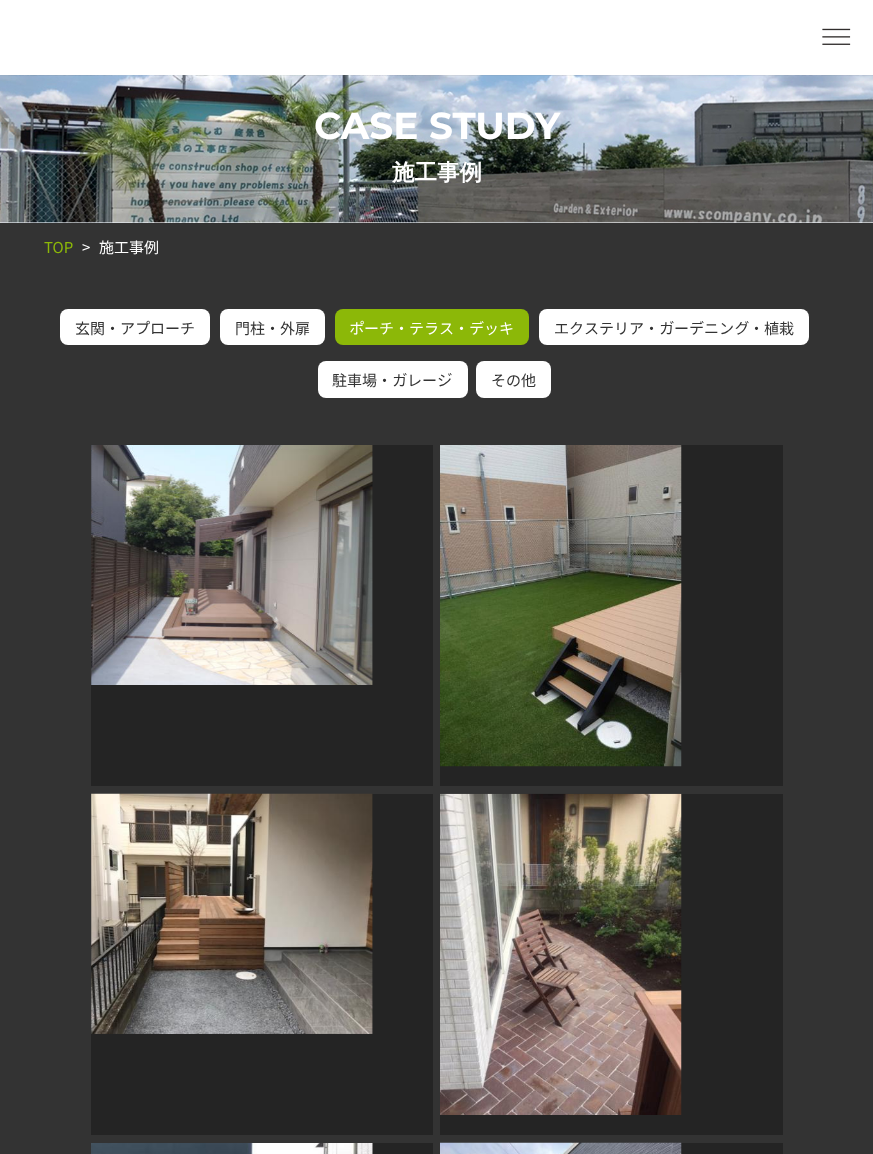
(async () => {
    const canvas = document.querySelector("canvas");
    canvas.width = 873;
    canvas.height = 1154;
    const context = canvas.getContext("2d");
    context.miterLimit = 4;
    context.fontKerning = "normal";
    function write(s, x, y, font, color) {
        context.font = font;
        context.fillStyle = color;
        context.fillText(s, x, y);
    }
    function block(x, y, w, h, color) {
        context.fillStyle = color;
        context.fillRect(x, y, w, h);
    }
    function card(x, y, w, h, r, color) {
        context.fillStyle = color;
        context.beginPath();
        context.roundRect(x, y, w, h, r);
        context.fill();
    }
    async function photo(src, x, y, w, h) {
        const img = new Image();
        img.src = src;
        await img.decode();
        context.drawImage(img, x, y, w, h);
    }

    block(0, 0, 873, 1154, "rgb(255, 255, 255)");
    await photo("media/1.png", 822, 28, 29, 17);
    await photo("media/2.png", 0, 75, 873, 148);
    write("CASE STUDY", 314, 139, "bold 37.5px Montserrat", "rgb(255, 255, 255)");
    write("施工事例", 392, 180, "bold 22.5px WenQuanYi Zen Hei", "rgb(255, 255, 255)");
    block(0, 223, 873, 931, "rgb(51, 51, 51)");
    write("TOP", 44, 253, "15px Noto Sans JP", "rgb(140, 184, 8)");
    write(">", 82, 253, "15px Noto Sans JP", "rgb(255, 255, 255)");
    write("施工事例", 99, 253, "15px Noto Sans JP", "rgb(255, 255, 255)");
    card(60, 309, 150, 36, 8, "rgb(255, 255, 255)");
    write("玄関・アプローチ", 75, 334, "15px Noto Sans JP", "rgb(51, 51, 51)");
    card(220, 309, 105, 36, 8, "rgb(255, 255, 255)");
    write("門柱・外扉", 235, 334, "15px Noto Sans JP", "rgb(51, 51, 51)");
    card(335, 309, 194, 36, 8, "rgb(140, 184, 8)");
    write("ポーチ・テラス・デッキ", 349, 334, "15px Noto Sans JP", "rgb(255, 255, 255)");
    card(539, 309, 270, 36, 8, "rgb(255, 255, 255)");
    write("エクステリア・ガーデニング・植栽", 554, 334, "15px Noto Sans JP", "rgb(51, 51, 51)");
    card(318, 361, 150, 37, 8, "rgb(255, 255, 255)");
    write("駐車場・ガレージ", 332, 386, "15px Noto Sans JP", "rgb(51, 51, 51)");
    card(476, 361, 75, 37, 8, "rgb(255, 255, 255)");
    write("その他", 491, 386, "15px Noto Sans JP", "rgb(51, 51, 51)");
    block(91, 445, 342, 341, "rgb(36, 36, 36)");
    await photo("media/3.png", 91, 445, 282, 240);
    block(440, 445, 343, 341, "rgb(36, 36, 36)");
    await photo("media/4.png", 440, 445, 242, 322);
    block(91, 794, 342, 341, "rgb(36, 36, 36)");
    await photo("media/5.png", 91, 793, 282, 241);
    block(440, 794, 343, 341, "rgb(36, 36, 36)");
    await photo("media/6.png", 440, 793, 242, 322);
    block(372, 1143, 61, 11, "rgb(36, 36, 36)");
    await photo("media/7.png", 91, 1143, 282, 11);
    block(681, 1143, 102, 11, "rgb(36, 36, 36)");
    await photo("media/8.png", 440, 1142, 242, 12);
})();
